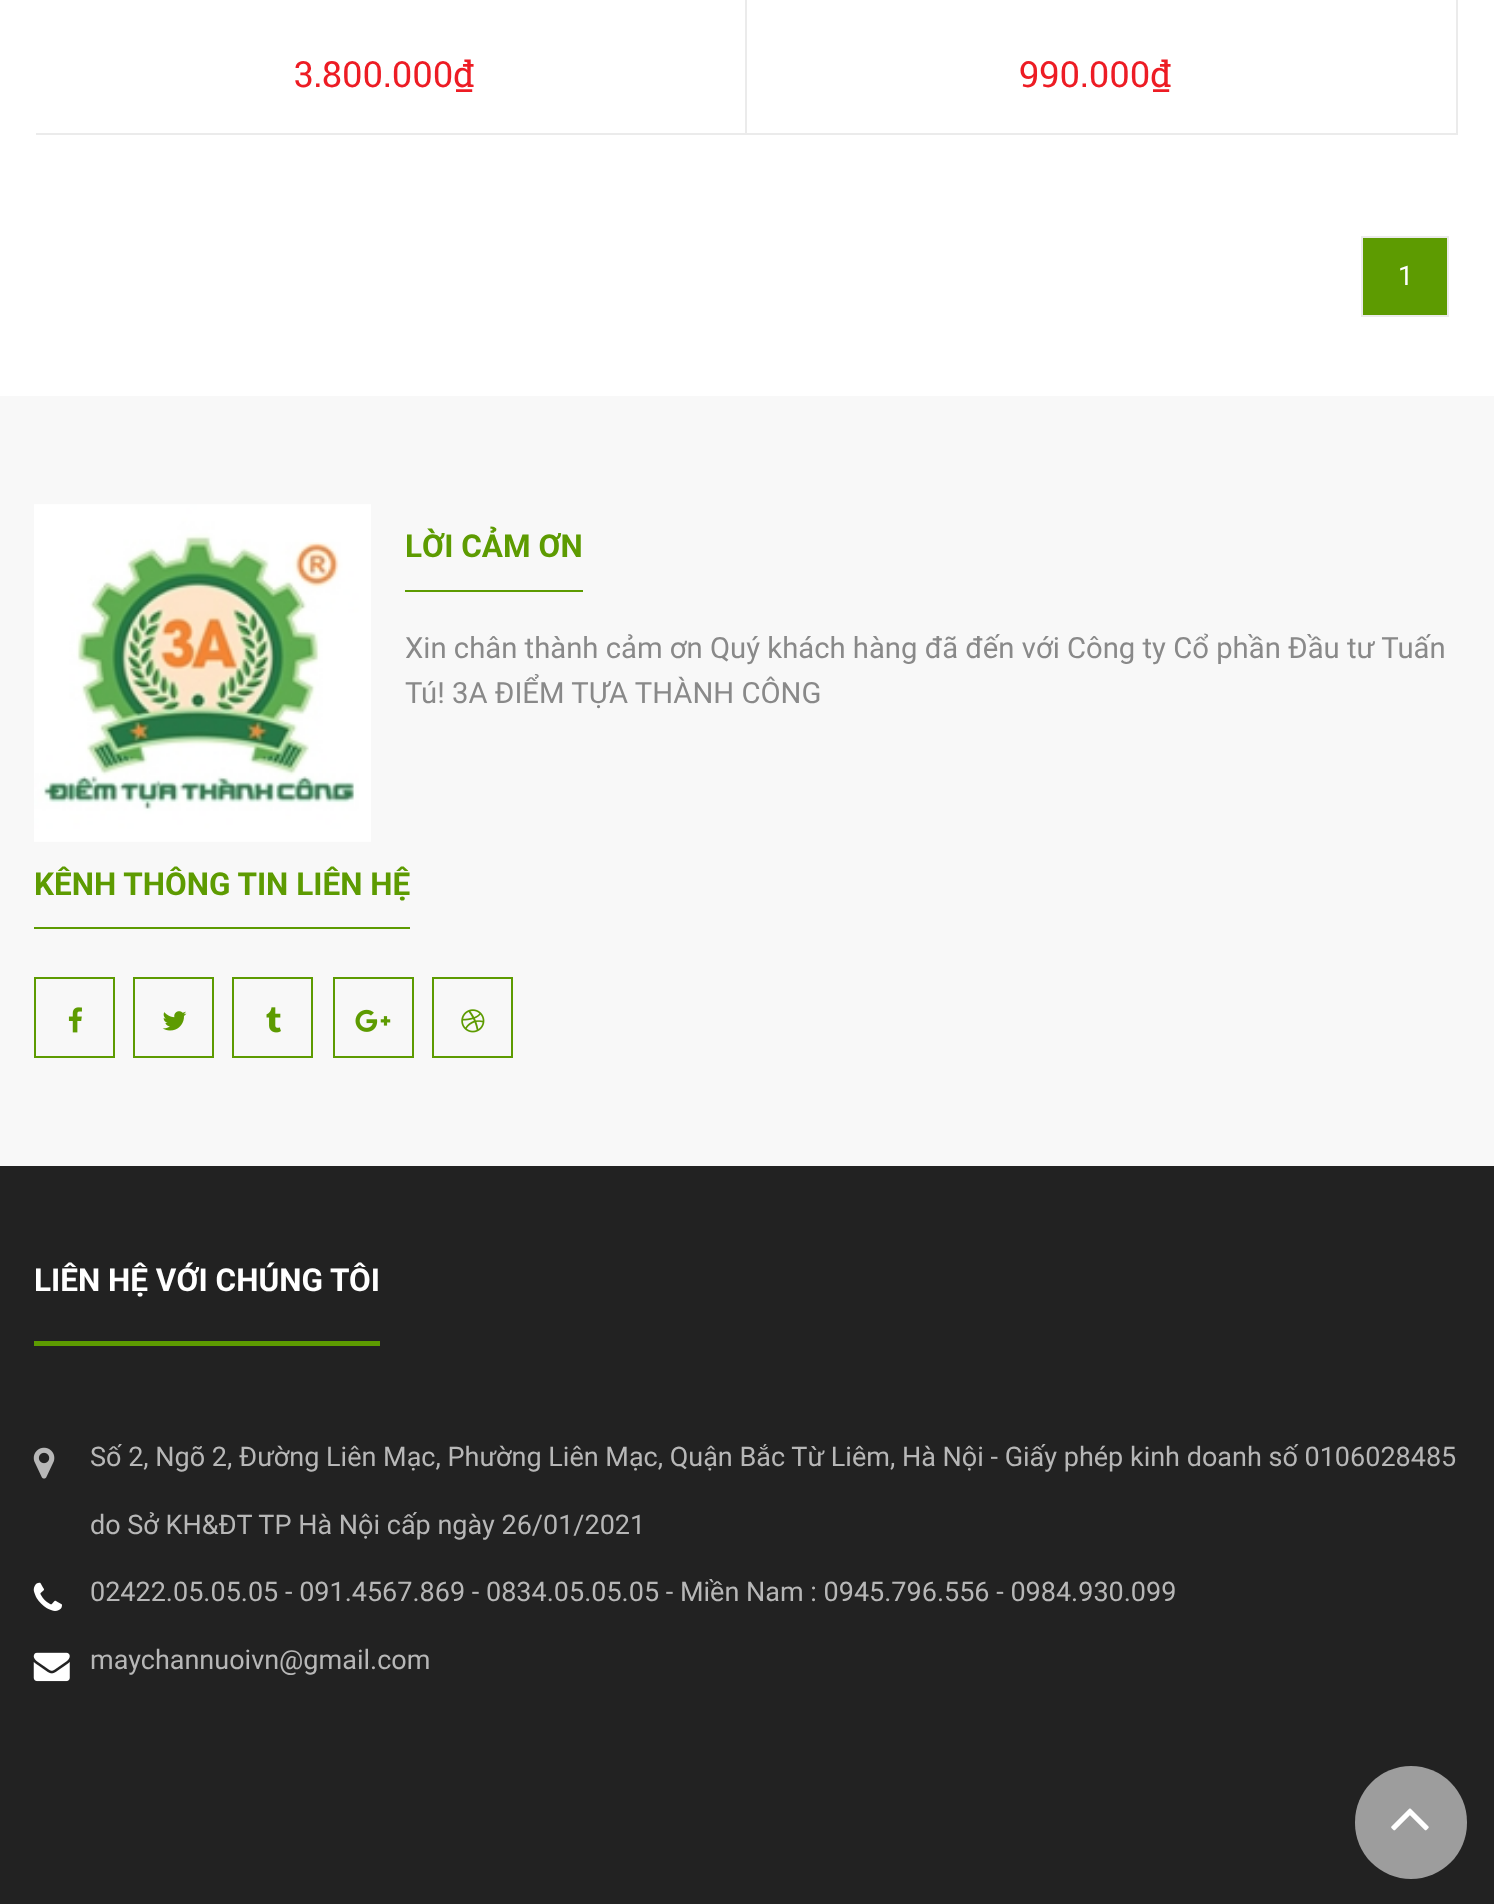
(async () => {
    const canvas = document.querySelector("canvas");
    canvas.width = 1494;
    canvas.height = 1904;
    const context = canvas.getContext("2d");
    context.miterLimit = 4;
    context.fontKerning = "normal";
    function write(s, x, y, font, color) {
        context.font = font;
        context.fillStyle = color;
        context.fillText(s, x, y);
    }
    function block(x, y, w, h, color) {
        context.fillStyle = color;
        context.fillRect(x, y, w, h);
    }
    function card(x, y, w, h, r, color) {
        context.fillStyle = color;
        context.beginPath();
        context.roundRect(x, y, w, h, r);
        context.fill();
    }
    async function photo(src, x, y, w, h) {
        const img = new Image();
        img.src = src;
        await img.decode();
        context.drawImage(img, x, y, w, h);
    }

    block(0, 0, 1494, 1904, "rgb(255, 255, 255)");
    block(745, 0, 2, 135, "rgb(235, 235, 235)");
    block(36, 133, 711, 2, "rgb(235, 235, 235)");
    write("3.800.000₫", 294, 87, "36px Roboto Slab", "rgb(237, 28, 36)");
    block(1456, 0, 2, 135, "rgb(235, 235, 235)");
    block(747, 133, 711, 2, "rgb(235, 235, 235)");
    write("990.000₫", 1019, 87, "36px Roboto Slab", "rgb(237, 28, 36)");
    context.fillStyle = "rgb(93, 155, 1)";
    context.beginPath();
    context.rect(1362, 237, 86, 79);
    context.fill();
    context.strokeStyle = "rgb(235, 235, 235)";
    context.lineWidth = 2;
    context.stroke();
    write("1", 1398, 285, "27px Roboto", "rgb(255, 255, 255)");
    block(0, 396, 1494, 770, "rgb(248, 248, 248)");
    await photo("media/1.png", 34, 504, 337, 338);
    block(405, 590, 178, 2, "rgb(93, 155, 1)");
    write("LỜI CẢM ƠN", 405, 557, "bold 31.5px Roboto", "rgb(93, 155, 1)");
    write("Xin chân thành cảm ơn Quý khách hàng đã đến với Công ty Cổ phần Đầu tư Tuấn", 405, 658, "29.25px Roboto", "rgb(137, 137, 137)");
    write("Tú! 3A ĐIỂM TỰA THÀNH CÔNG", 405, 703, "29.25px Roboto", "rgb(137, 137, 137)");
    block(34, 927, 376, 2, "rgb(93, 155, 1)");
    write("KÊNH THÔNG TIN LIÊN HỆ", 34, 895, "bold 31.5px Roboto", "rgb(93, 155, 1)");
    context.strokeStyle = "rgb(93, 155, 1)";
    context.strokeRect(35, 978, 79, 79);
    await photo("media/2.png", 68, 1007, 14, 26);
    context.strokeRect(134, 978, 79, 79);
    await photo("media/3.png", 162, 1011, 25, 20);
    context.strokeRect(233, 978, 79, 79);
    await photo("media/4.png", 266, 1007, 15, 26);
    context.strokeRect(334, 978, 79, 79);
    await photo("media/5.png", 355, 1009, 36, 23);
    context.strokeRect(433, 978, 79, 79);
    await photo("media/6.png", 461, 1009, 24, 24);
    block(0, 1166, 1494, 738, "rgb(34, 34, 34)");
    block(34, 1341, 346, 5, "rgb(93, 155, 1)");
    write("LIÊN HỆ VỚI CHÚNG TÔI", 34, 1291, "bold 31.5px Roboto", "rgb(255, 255, 255)");
    await photo("media/7.png", 33, 1447, 22, 32);
    write("Số 2, Ngõ 2, Đường Liên Mạc, Phường Liên Mạc, Quận Bắc Từ Liêm, Hà Nội - Giấy phép kinh doanh số 0106028485", 90, 1466, "27px Roboto", "rgb(183, 183, 183)");
    write("do Sở KH&ĐT TP Hà Nội cấp ngày 26/01/2021", 90, 1534, "27px Roboto", "rgb(183, 183, 183)");
    await photo("media/8.png", 33, 1582, 29, 29);
    write("02422.05.05.05 - 091.4567.869 - 0834.05.05.05 - Miền Nam : 0945.796.556 - 0984.930.099", 90, 1601, "27px Roboto", "rgb(183, 183, 183)");
    await photo("media/9.png", 33, 1652, 37, 30);
    write("maychannuoivn@gmail.com", 90, 1669, "27px Roboto", "rgb(183, 183, 183)");
    card(1355, 1766, 112, 113, 56, "rgb(157, 157, 157)");
    await photo("media/10.png", 1391, 1808, 38, 23);
})();
